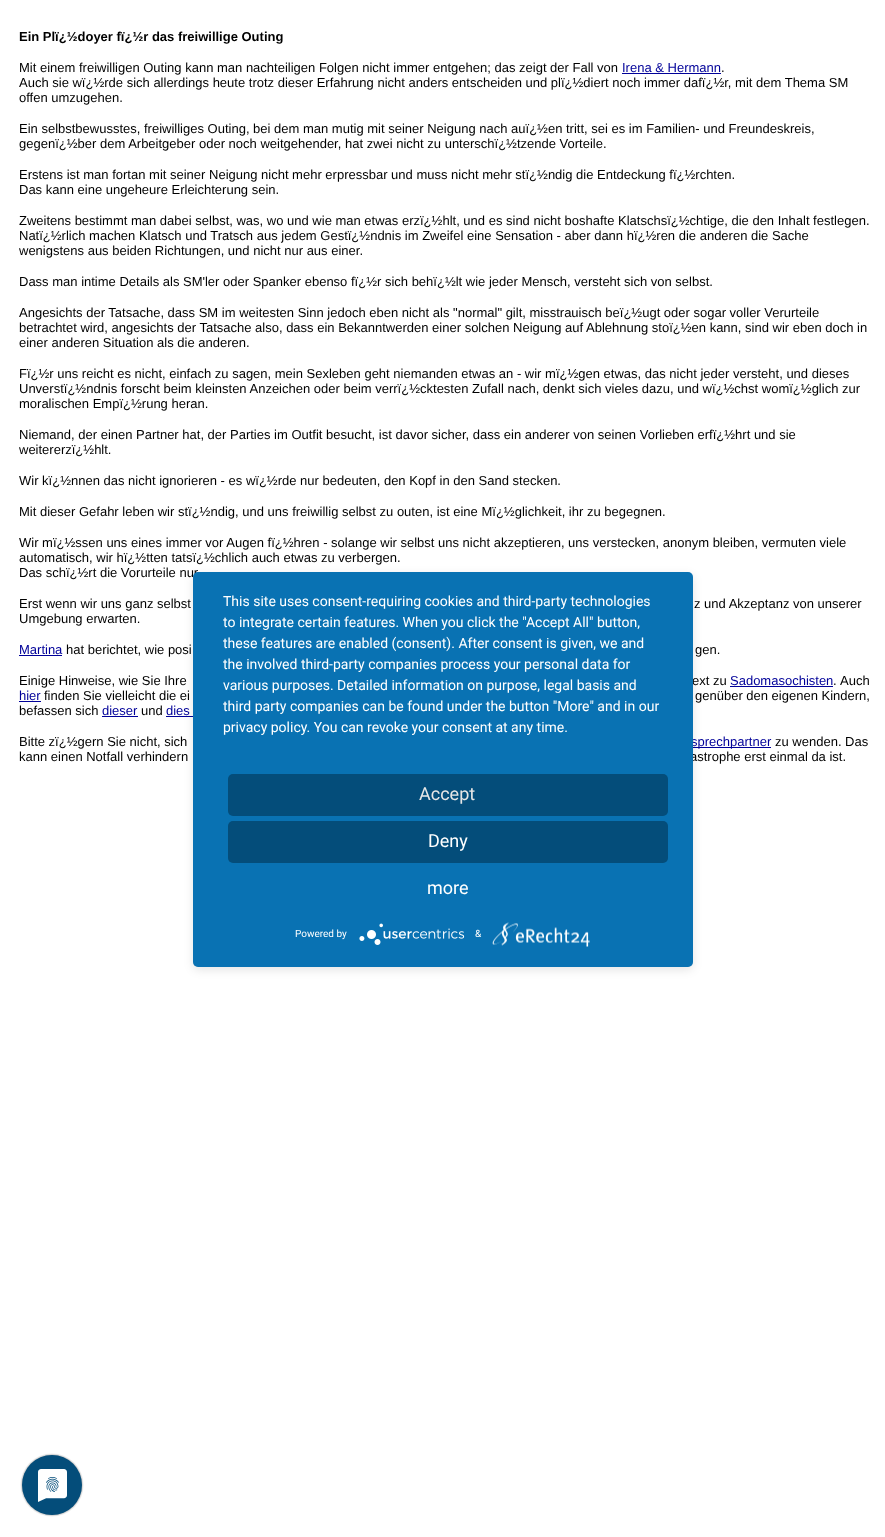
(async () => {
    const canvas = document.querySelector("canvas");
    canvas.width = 885;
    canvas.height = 1537;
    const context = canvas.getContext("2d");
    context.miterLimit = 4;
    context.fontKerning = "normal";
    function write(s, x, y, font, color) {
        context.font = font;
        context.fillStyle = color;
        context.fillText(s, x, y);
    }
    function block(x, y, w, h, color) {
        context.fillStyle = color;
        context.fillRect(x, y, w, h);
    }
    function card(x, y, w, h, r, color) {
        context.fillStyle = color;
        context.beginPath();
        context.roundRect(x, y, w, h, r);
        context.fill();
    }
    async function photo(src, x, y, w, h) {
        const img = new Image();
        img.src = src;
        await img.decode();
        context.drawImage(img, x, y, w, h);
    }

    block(0, 0, 885, 1537, "rgb(255, 255, 255)");
    write("Ein Plï¿½doyer fï¿½r das freiwillige Outing", 19, 41, "bold 13px Liberation Sans", "rgb(0, 0, 0)");
    write("Mit einem freiwilligen Outing kann man nachteiligen Folgen nicht immer entgehen; das zeigt der Fall von", 19, 72, "13px Liberation Sans", "rgb(0, 0, 0)");
    write("Irena & Hermann", 622, 72, "13px Liberation Sans", "rgb(0, 0, 153)");
    write(".", 721, 72, "13px Liberation Sans", "rgb(0, 0, 0)");
    block(622, 73, 99, 1, "rgb(0, 0, 153)");
    write("Auch sie wï¿½rde sich allerdings heute trotz dieser Erfahrung nicht anders entscheiden und plï¿½diert noch immer dafï¿½r, mit dem Thema SM", 19, 87, "13px Liberation Sans", "rgb(0, 0, 0)");
    write("offen umzugehen.", 19, 102, "13px Liberation Sans", "rgb(0, 0, 0)");
    write("Ein selbstbewusstes, freiwilliges Outing, bei dem man mutig mit seiner Neigung nach auï¿½en tritt, sei es im Familien- und Freundeskreis,", 19, 133, "13px Liberation Sans", "rgb(0, 0, 0)");
    write("gegenï¿½ber dem Arbeitgeber oder noch weitgehender, hat zwei nicht zu unterschï¿½tzende Vorteile.", 19, 148, "13px Liberation Sans", "rgb(0, 0, 0)");
    write("Erstens ist man fortan mit seiner Neigung nicht mehr erpressbar und muss nicht mehr stï¿½ndig die Entdeckung fï¿½rchten.", 19, 179, "13px Liberation Sans", "rgb(0, 0, 0)");
    write("Das kann eine ungeheure Erleichterung sein.", 19, 194, "13px Liberation Sans", "rgb(0, 0, 0)");
    write("Zweitens bestimmt man dabei selbst, was, wo und wie man etwas erzï¿½hlt, und es sind nicht boshafte Klatschsï¿½chtige, die den Inhalt festlegen.", 19, 225, "13px Liberation Sans", "rgb(0, 0, 0)");
    write("Natï¿½rlich machen Klatsch und Tratsch aus jedem Gestï¿½ndnis im Zweifel eine Sensation - aber dann hï¿½ren die anderen die Sache", 19, 240, "13px Liberation Sans", "rgb(0, 0, 0)");
    write("wenigstens aus beiden Richtungen, und nicht nur aus einer.", 19, 255, "13px Liberation Sans", "rgb(0, 0, 0)");
    write("Dass man intime Details als SM'ler oder Spanker ebenso fï¿½r sich behï¿½lt wie jeder Mensch, versteht sich von selbst.", 19, 286, "13px Liberation Sans", "rgb(0, 0, 0)");
    write("Angesichts der Tatsache, dass SM im weitesten Sinn jedoch eben nicht als \"normal\" gilt, misstrauisch beï¿½ugt oder sogar voller Verurteile", 19, 317, "13px Liberation Sans", "rgb(0, 0, 0)");
    write("betrachtet wird, angesichts der Tatsache also, dass ein Bekanntwerden einer solchen Neigung auf Ablehnung stoï¿½en kann, sind wir eben doch in", 19, 332, "13px Liberation Sans", "rgb(0, 0, 0)");
    write("einer anderen Situation als die anderen.", 19, 347, "13px Liberation Sans", "rgb(0, 0, 0)");
    write("Fï¿½r uns reicht es nicht, einfach zu sagen, mein Sexleben geht niemanden etwas an - wir mï¿½gen etwas, das nicht jeder versteht, und dieses", 19, 378, "13px Liberation Sans", "rgb(0, 0, 0)");
    write("Unverstï¿½ndnis forscht beim kleinsten Anzeichen oder beim verrï¿½cktesten Zufall nach, denkt sich vieles dazu, und wï¿½chst womï¿½glich zur", 19, 393, "13px Liberation Sans", "rgb(0, 0, 0)");
    write("moralischen Empï¿½rung heran.", 19, 408, "13px Liberation Sans", "rgb(0, 0, 0)");
    write("Niemand, der einen Partner hat, der Parties im Outfit besucht, ist davor sicher, dass ein anderer von seinen Vorlieben erfï¿½hrt und sie", 19, 439, "13px Liberation Sans", "rgb(0, 0, 0)");
    write("weitererzï¿½hlt.", 19, 454, "13px Liberation Sans", "rgb(0, 0, 0)");
    write("Wir kï¿½nnen das nicht ignorieren - es wï¿½rde nur bedeuten, den Kopf in den Sand stecken.", 19, 485, "13px Liberation Sans", "rgb(0, 0, 0)");
    write("Mit dieser Gefahr leben wir stï¿½ndig, und uns freiwillig selbst zu outen, ist eine Mï¿½glichkeit, ihr zu begegnen.", 19, 516, "13px Liberation Sans", "rgb(0, 0, 0)");
    write("Wir mï¿½ssen uns eines immer vor Augen fï¿½hren - solange wir selbst uns nicht akzeptieren, uns verstecken, anonym bleiben, vermuten viele", 19, 547, "13px Liberation Sans", "rgb(0, 0, 0)");
    write("automatisch, wir hï¿½tten tatsï¿½chlich auch etwas zu verbergen.", 19, 562, "13px Liberation Sans", "rgb(0, 0, 0)");
    write("Das schï¿½rt die Vorurteile nur", 19, 577, "13px Liberation Sans", "rgb(0, 0, 0)");
    write("Erst wenn wir uns ganz selbst", 19, 608, "13px Liberation Sans", "rgb(0, 0, 0)");
    write("z und Akzeptanz von unserer", 694, 608, "13px Liberation Sans", "rgb(0, 0, 0)");
    write("Umgebung erwarten.", 19, 623, "13px Liberation Sans", "rgb(0, 0, 0)");
    write("Martina", 19, 654, "13px Liberation Sans", "rgb(0, 0, 153)");
    block(19, 655, 43, 1, "rgb(0, 0, 153)");
    write("hat berichtet, wie posi", 66, 654, "13px Liberation Sans", "rgb(0, 0, 0)");
    write("gen.", 695, 654, "13px Liberation Sans", "rgb(0, 0, 0)");
    write("Einige Hinweise, wie Sie Ihre", 19, 685, "13px Liberation Sans", "rgb(0, 0, 0)");
    write("ext zu", 692, 685, "13px Liberation Sans", "rgb(0, 0, 0)");
    write("Sadomasochisten", 730, 685, "13px Liberation Sans", "rgb(0, 0, 153)");
    write(".", 833, 685, "13px Liberation Sans", "rgb(0, 0, 0)");
    block(730, 686, 103, 1, "rgb(0, 0, 153)");
    write("Auch", 840, 685, "13px Liberation Sans", "rgb(0, 0, 0)");
    write("hier", 19, 700, "13px Liberation Sans", "rgb(0, 0, 153)");
    block(19, 701, 22, 1, "rgb(0, 0, 153)");
    write("finden Sie vielleicht die ei", 44, 700, "13px Liberation Sans", "rgb(0, 0, 0)");
    write("genüber den eigenen Kindern,", 695, 700, "13px Liberation Sans", "rgb(0, 0, 0)");
    write("befassen sich", 19, 715, "13px Liberation Sans", "rgb(0, 0, 0)");
    write("dieser", 102, 715, "13px Liberation Sans", "rgb(0, 0, 153)");
    block(102, 716, 36, 1, "rgb(0, 0, 153)");
    write("und", 141, 715, "13px Liberation Sans", "rgb(0, 0, 0)");
    write("dies", 166, 715, "13px Liberation Sans", "rgb(0, 0, 153)");
    block(166, 716, 27, 1, "rgb(0, 0, 153)");
    write("Bitte zï¿½gern Sie nicht, sich", 19, 746, "13px Liberation Sans", "rgb(0, 0, 0)");
    block(693, 747, 78, 1, "rgb(0, 0, 153)");
    write("sprechpartner", 691, 746, "13px Liberation Sans", "rgb(0, 0, 153)");
    write("zu wenden. Das", 775, 746, "13px Liberation Sans", "rgb(0, 0, 0)");
    write("kann einen Notfall verhindern", 19, 761, "13px Liberation Sans", "rgb(0, 0, 0)");
    write("astrophe erst einmal da ist.", 690, 761, "13px Liberation Sans", "rgb(0, 0, 0)");
    context.fillStyle = "rgba(0, 0, 0, 0.1)";
    context.filter = "blur(5px)";
    context.beginPath();
    context.roundRect(193, 575, 500, 395, 5);
    context.fill();
    context.filter = "none";
    context.save();
    context.beginPath();
    context.roundRect(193, 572, 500, 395, 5);
    context.clip();
    context.fillStyle = "rgba(0, 0, 0, 0.3)";
    context.filter = "blur(18px)";
    context.beginPath();
    context.rect(193, 578, 500, 395);
    context.fill();
    context.filter = "none";
    context.restore();
    card(193, 572, 500, 395, 5, "rgb(9, 114, 179)");
    write("This site uses consent-requiring cookies and third-party technologies", 223, 606, "14px Roboto", "rgb(255, 255, 255)");
    write("to integrate certain features. When you click the \"Accept All\" button,", 223, 627, "14px Roboto", "rgb(255, 255, 255)");
    write("these features are enabled (consent). After consent is given, we and", 223, 648, "14px Roboto", "rgb(255, 255, 255)");
    write("the involved third-party companies process your personal data for", 223, 669, "14px Roboto", "rgb(255, 255, 255)");
    write("various purposes. Detailed information on purpose, legal basis and", 223, 690, "14px Roboto", "rgb(255, 255, 255)");
    write("third party companies can be found under the button \"More\" and in our", 223, 711, "14px Roboto", "rgb(255, 255, 255)");
    write("privacy policy. You can revoke your consent at any time.", 223, 732, "14px Roboto", "rgb(255, 255, 255)");
    card(228, 774, 440, 42, 5, "rgb(4, 77, 122)");
    write("Accept", 419, 800, "18px Roboto", "rgb(230, 230, 230)");
    card(228, 821, 440, 42, 5, "rgb(4, 77, 122)");
    write("Deny", 428, 847, "18px Roboto", "rgb(255, 255, 255)");
    write("more", 427, 894, "18px Roboto", "rgb(255, 255, 255)");
    write("Powered by", 295, 937, "10px Roboto", "rgb(255, 255, 255)");
    await photo("media/1.png", 359, 923, 106, 22);
    write("&", 475, 937, "10px Roboto", "rgb(255, 255, 255)");
    await photo("media/2.png", 492, 922, 98, 25);
    await photo("media/3.png", 20, 1453, 64, 64);
})();
